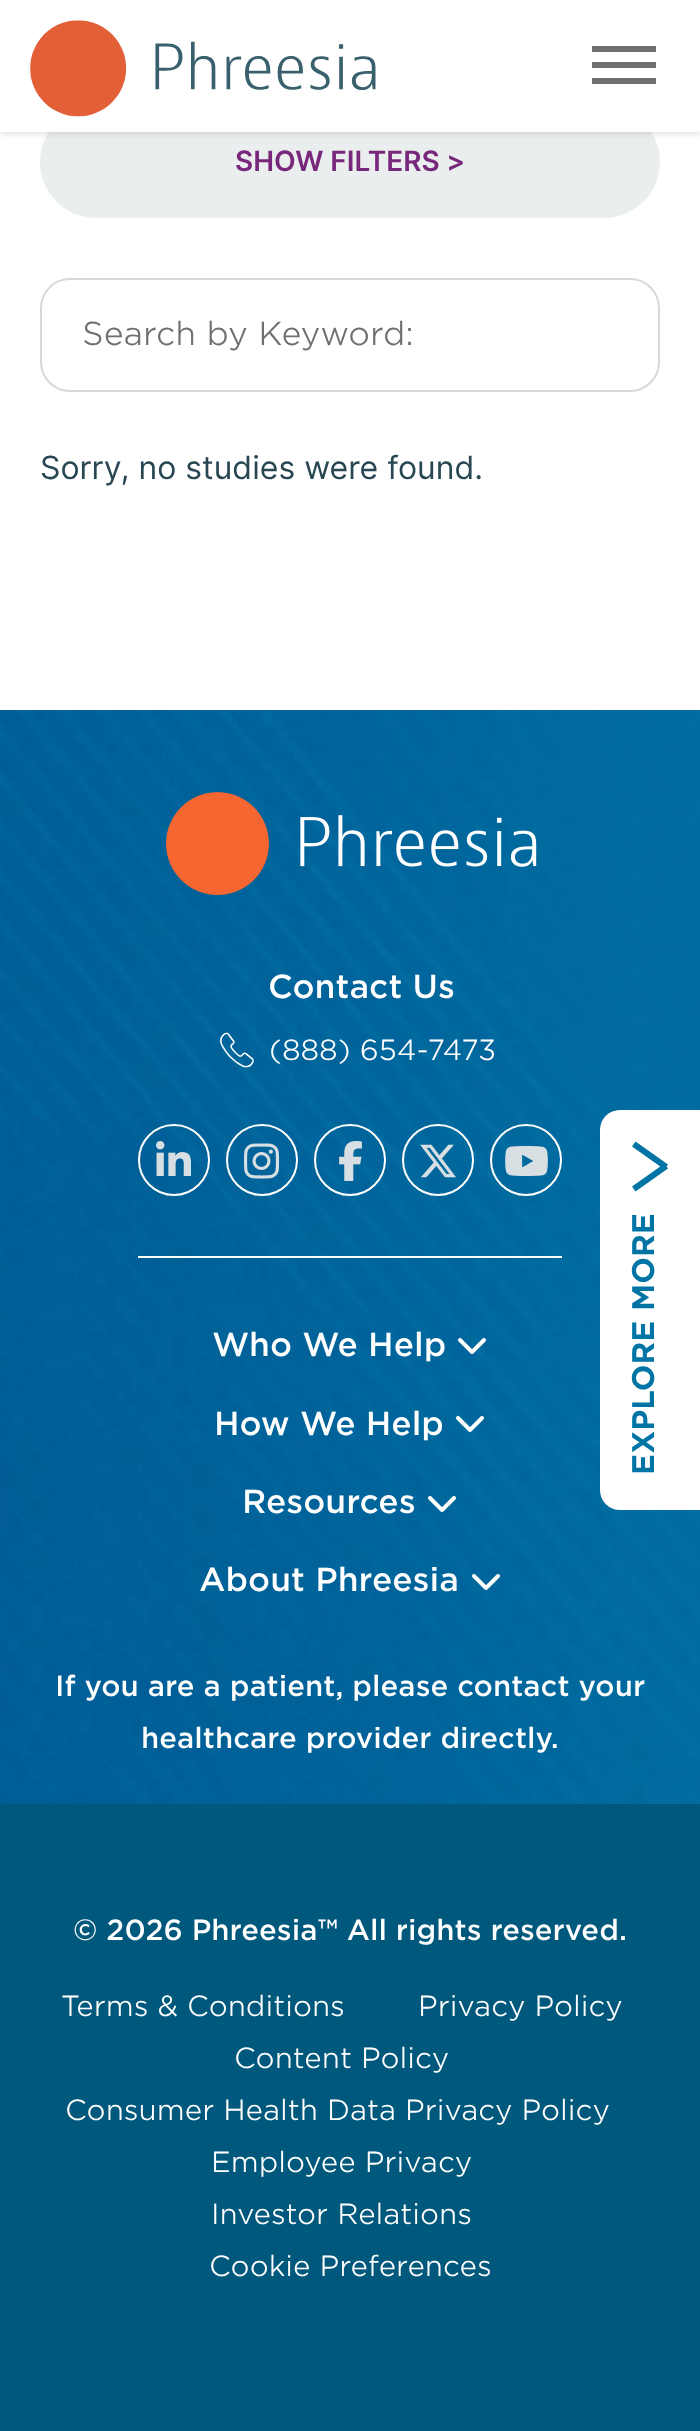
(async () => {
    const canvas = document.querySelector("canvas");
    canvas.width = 700;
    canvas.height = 2431;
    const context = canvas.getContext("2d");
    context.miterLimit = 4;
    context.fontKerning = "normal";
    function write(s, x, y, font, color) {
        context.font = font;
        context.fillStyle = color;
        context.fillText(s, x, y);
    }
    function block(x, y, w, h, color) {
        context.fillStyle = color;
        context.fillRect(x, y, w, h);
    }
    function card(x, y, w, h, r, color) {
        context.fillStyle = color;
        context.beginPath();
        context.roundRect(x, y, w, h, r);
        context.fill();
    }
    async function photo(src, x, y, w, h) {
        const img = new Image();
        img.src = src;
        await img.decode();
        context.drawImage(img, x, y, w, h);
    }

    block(0, 0, 700, 2431, "rgb(255, 255, 255)");
    card(40, 106, 620, 112, 56, "rgb(235, 238, 239)");
    context.fillStyle = "rgba(0, 0, 0, 0.12)";
    context.filter = "blur(3px)";
    context.beginPath();
    context.rect(0, 2, 700, 132);
    context.fill();
    context.filter = "none";
    block(0, 0, 700, 132, "rgb(255, 255, 255)");
    await photo("media/1.png", 30, 20, 346, 97);
    block(592, 46, 64, 6, "rgb(112, 112, 112)");
    block(592, 62, 64, 6, "rgb(112, 112, 112)");
    block(592, 78, 64, 6, "rgb(112, 112, 112)");
    write("SHOW FILTERS >", 235, 171, "600 28px Inter", "rgb(120, 40, 123)");
    context.beginPath();
    context.roundRect(41, 279, 618, 112, 29);
    context.strokeStyle = "rgb(212, 218, 219)";
    context.lineWidth = 2;
    context.stroke();
    write("Search by Keyword:", 82, 345, "300 32px Gotham", "rgb(112, 112, 112)");
    write("Sorry, no studies were found.", 40, 479, "32px Inter", "rgb(41, 71, 83)");
    await photo("media/2.png", 0, 710, 700, 1094);
    await photo("media/3.png", 166, 792, 371, 103);
    write("Contact Us", 268, 998, "500 32px Gotham", "rgb(255, 255, 255)");
    await photo("media/4.png", 220, 1032, 34, 36);
    write("(888) 654-7473", 269, 1060, "300 28px Gotham", "rgb(255, 255, 255)");
    block(138, 1256, 424, 2, "rgb(255, 255, 255)");
    context.beginPath();
    context.arc(174, 1160, 35, 0, Math.PI * 2);
    context.strokeStyle = "rgb(255, 255, 255)";
    context.stroke();
    await photo("media/5.png", 156, 1141, 35, 35);
    context.beginPath();
    context.arc(262, 1160, 35, 0, Math.PI * 2);
    context.stroke();
    await photo("media/6.png", 244, 1143, 35, 36);
    context.beginPath();
    context.arc(350, 1160, 35, 0, Math.PI * 2);
    context.stroke();
    await photo("media/7.png", 339, 1141, 23, 40);
    context.beginPath();
    context.arc(438, 1160, 35, 0, Math.PI * 2);
    context.stroke();
    await photo("media/8.png", 420, 1144, 36, 34);
    context.beginPath();
    context.arc(526, 1160, 35, 0, Math.PI * 2);
    context.stroke();
    await photo("media/9.png", 505, 1146, 43, 30);
    context.beginPath();
    context.roundRect(600, 1110, 100, 400, [20, 0, 0, 20]);
    context.fill();
    context.fillStyle = "rgb(0, 117, 165)";
    context.beginPath();
    context.moveTo(635.5, 1141.5);
    context.lineTo(668, 1164.5);
    context.lineTo(664.5, 1169.5);
    context.lineTo(632, 1146.5);
    context.closePath();
    context.fill();
    context.beginPath();
    context.moveTo(632, 1186.5);
    context.lineTo(664.5, 1163.5);
    context.lineTo(668, 1168.5);
    context.lineTo(635.5, 1191.5);
    context.closePath();
    context.fill();
    context.font = "bold 30px Gotham";
    context.save();
    context.translate(654, 1475);
    context.rotate(-90 * Math.PI / 180);
    context.fillText("EXPLORE MORE", 0, 0);
    context.restore();
    write("Who We Help", 212, 1356, "500 32px Gotham", "rgb(255, 255, 255)");
    await photo("media/10.png", 458, 1338, 28, 16);
    write("How We Help", 214, 1435, "500 32px Gotham", "rgb(255, 255, 255)");
    await photo("media/11.png", 456, 1416, 28, 16);
    write("Resources", 242, 1513, "500 32px Gotham", "rgb(255, 255, 255)");
    await photo("media/12.png", 428, 1496, 28, 16);
    write("About Phreesia", 199, 1591, "500 32px Gotham", "rgb(255, 255, 255)");
    await photo("media/13.png", 472, 1574, 28, 16);
    write("If you are a patient, please contact your", 55, 1696, "500 28px Gotham", "rgb(255, 255, 255)");
    write("healthcare provider directly.", 141, 1748, "500 28px Gotham", "rgb(255, 255, 255)");
    block(0, 1804, 700, 627, "rgb(0, 88, 124)");
    write("© 2026 Phreesia™ All rights reserved.", 73, 1940, "500 28px Gotham", "rgb(255, 255, 255)");
    write("Terms & Conditions", 61, 2016, "300 28px Gotham", "rgb(255, 255, 255)");
    write("Privacy Policy", 418, 2016, "300 28px Gotham", "rgb(255, 255, 255)");
    write("Content Policy", 234, 2068, "300 28px Gotham", "rgb(255, 255, 255)");
    write("Consumer Health Data Privacy Policy", 65, 2120, "300 28px Gotham", "rgb(255, 255, 255)");
    write("Employee Privacy", 211, 2172, "300 28px Gotham", "rgb(255, 255, 255)");
    write("Investor Relations", 211, 2224, "300 28px Gotham", "rgb(255, 255, 255)");
    write("Cookie Preferences", 209, 2276, "300 28px Gotham", "rgb(255, 255, 255)");
})();
